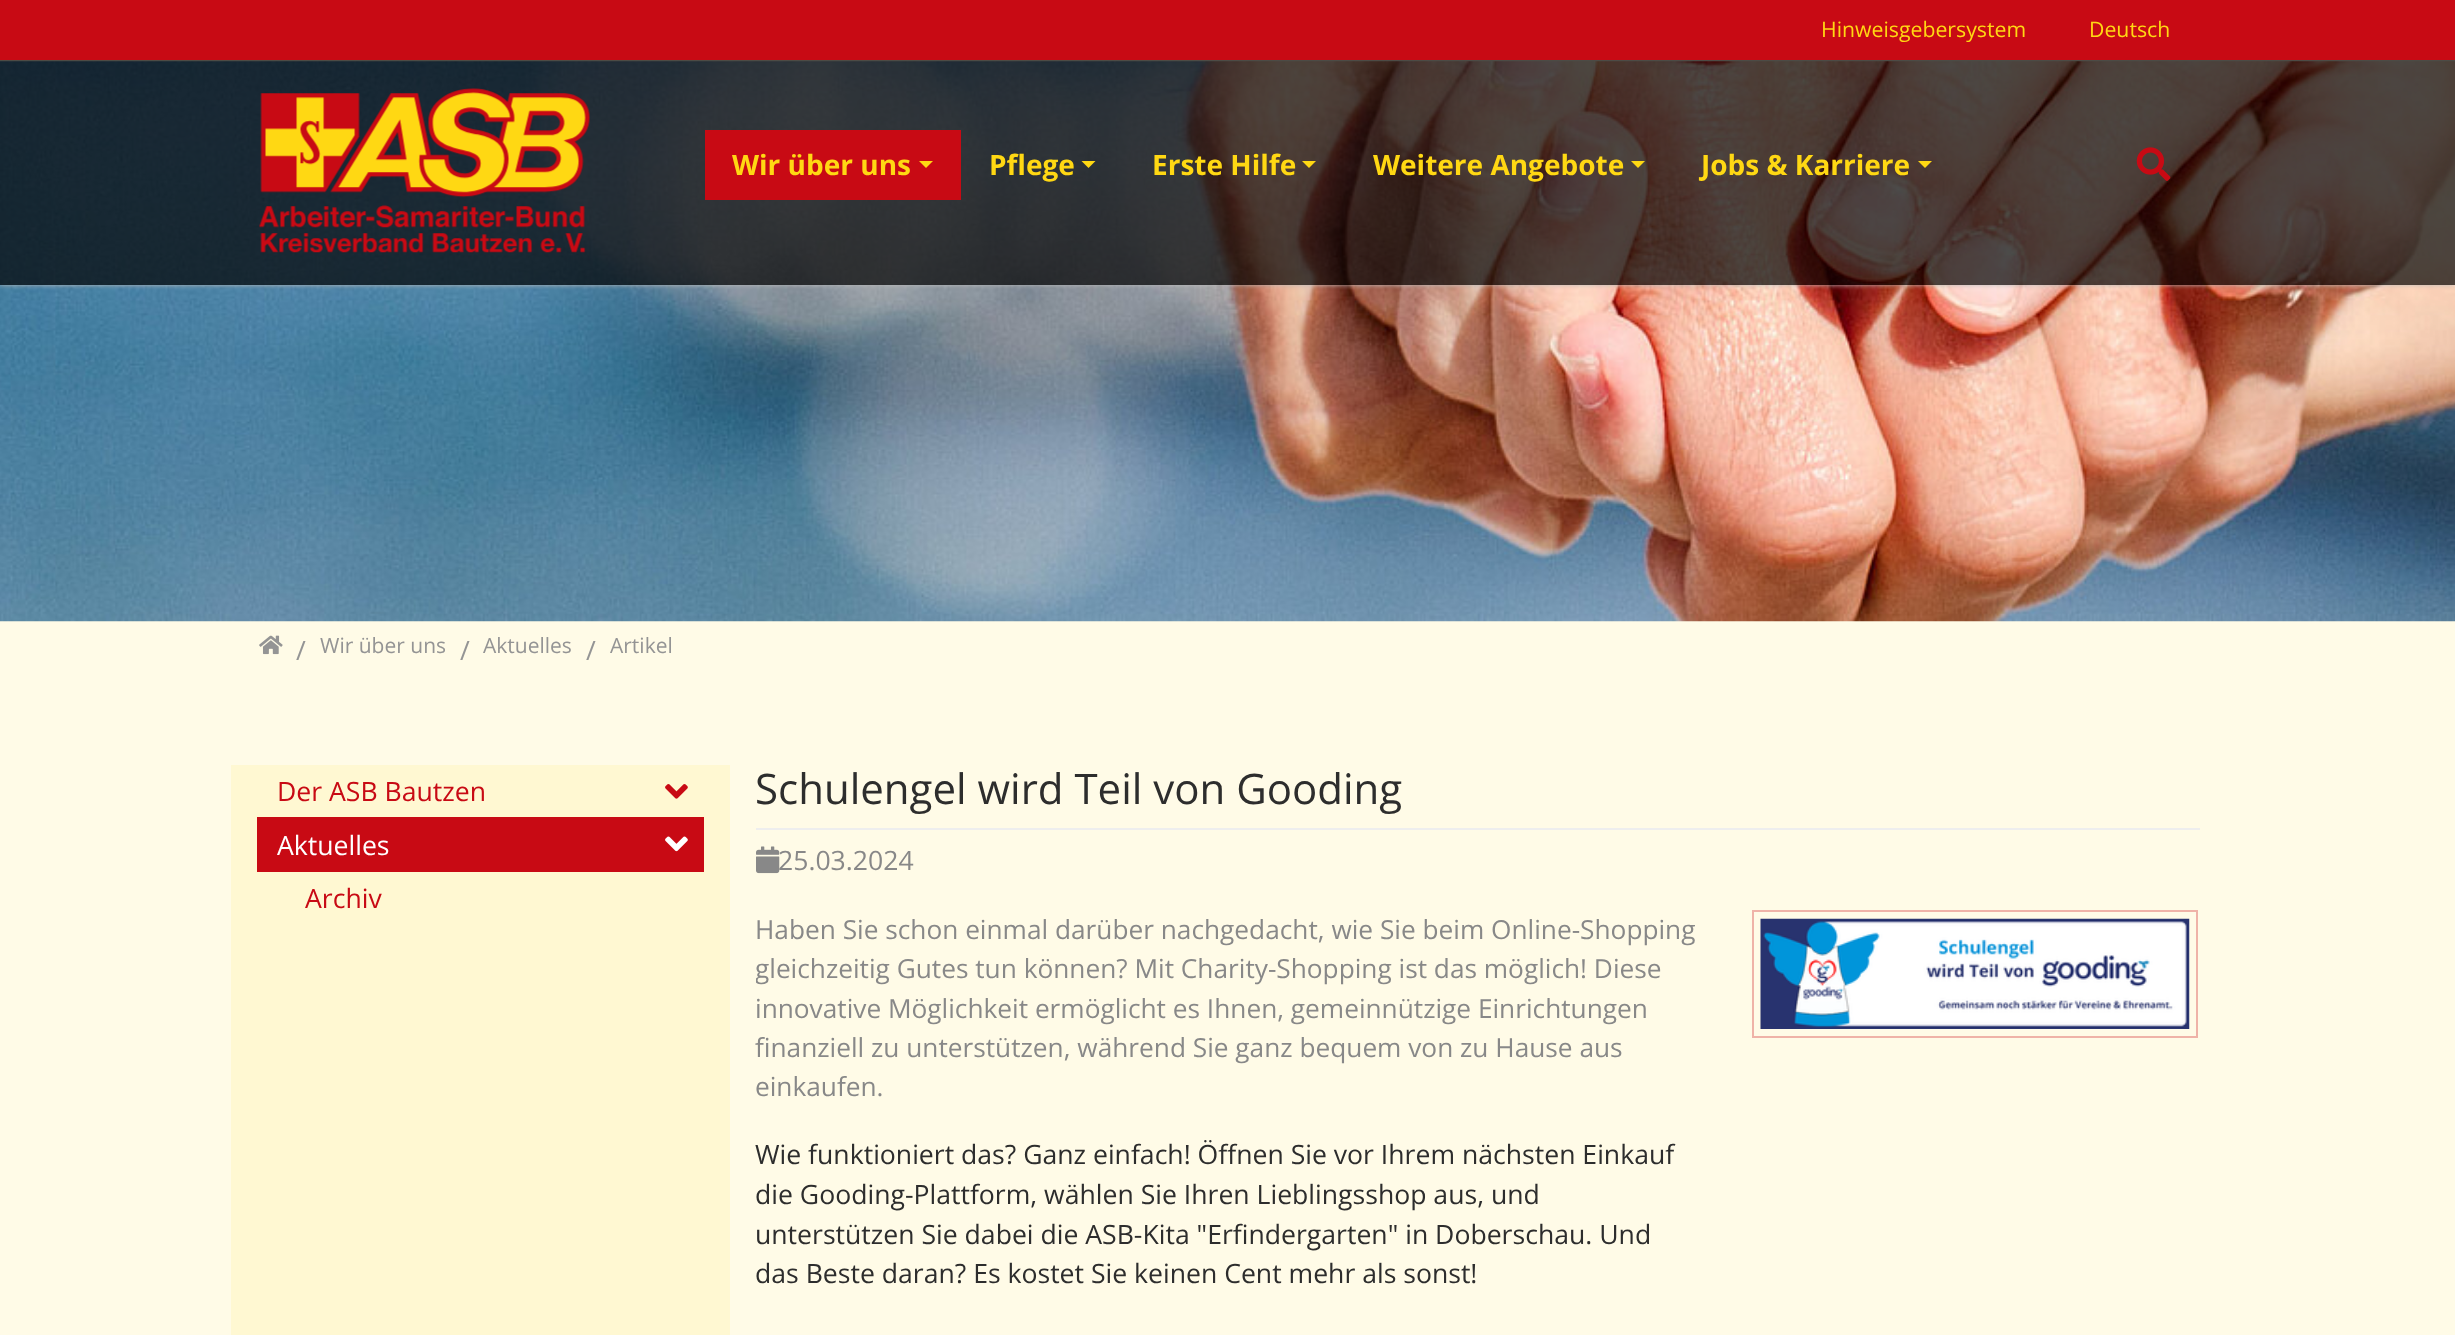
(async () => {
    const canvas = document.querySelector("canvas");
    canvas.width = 2455;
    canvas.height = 1335;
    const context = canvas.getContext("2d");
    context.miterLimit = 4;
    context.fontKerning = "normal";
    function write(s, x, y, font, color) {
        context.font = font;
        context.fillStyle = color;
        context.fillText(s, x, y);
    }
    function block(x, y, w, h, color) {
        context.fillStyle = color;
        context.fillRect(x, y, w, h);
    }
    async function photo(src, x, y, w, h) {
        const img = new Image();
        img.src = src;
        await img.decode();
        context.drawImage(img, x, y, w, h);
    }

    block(0, 0, 2455, 1335, "rgb(255, 251, 231)");
    await photo("media/3.png", 0, 61, 2455, 561);
    context.save();
    context.beginPath();
    context.rect(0, 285, 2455, 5);
    context.clip();
    context.fillStyle = "rgb(187, 187, 187)";
    context.filter = "blur(2.5px)";
    context.beginPath();
    context.rect(0, 0, 2455, 285);
    context.fill();
    context.filter = "none";
    context.restore();
    block(0, 0, 2455, 60, "rgb(200, 10, 20)");
    write("Hinweisgebersystem", 1821, 37, "21.25px Open Sans", "rgb(255, 216, 19)");
    write("Deutsch", 2089, 37, "21.25px Open Sans", "rgb(255, 216, 19)");
    block(0, 60, 2455, 225, "rgba(0, 0, 0, 0.7)");
    await photo("media/1.png", 259, 88, 331, 165);
    block(705, 130, 256, 70, "rgb(200, 10, 20)");
    write("Wir über uns", 732, 175, "bold 28px Open Sans", "rgb(255, 216, 19)");
    context.beginPath();
    context.moveTo(919, 161);
    context.lineTo(933, 161);
    context.lineTo(926, 168);
    context.closePath();
    context.fill();
    write("Pflege", 989, 175, "bold 28px Open Sans", "rgb(255, 216, 19)");
    context.beginPath();
    context.moveTo(1081.5, 161);
    context.lineTo(1095.5, 161);
    context.lineTo(1088.5, 168);
    context.closePath();
    context.fill();
    write("Erste Hilfe", 1152, 175, "bold 28px Open Sans", "rgb(255, 216, 19)");
    context.beginPath();
    context.moveTo(1302, 161);
    context.lineTo(1316, 161);
    context.lineTo(1309, 168);
    context.closePath();
    context.fill();
    write("Weitere Angebote", 1373, 175, "bold 28px Open Sans", "rgb(255, 216, 19)");
    context.beginPath();
    context.moveTo(1631, 161);
    context.lineTo(1645, 161);
    context.lineTo(1638, 168);
    context.closePath();
    context.fill();
    write("Jobs & Karriere", 1701, 175, "bold 28px Open Sans", "rgb(255, 216, 19)");
    context.beginPath();
    context.moveTo(1918, 161);
    context.lineTo(1932, 161);
    context.lineTo(1925, 168);
    context.closePath();
    context.fill();
    await photo("media/2.png", 2136, 147, 35, 34);
    await photo("media/4.png", 259, 635, 24, 20);
    write("/", 296, 660, "26.6px Open Sans", "rgb(148, 148, 148)");
    write("Wir über uns", 320, 653, "21px Open Sans", "rgb(148, 148, 148)");
    write("/", 460, 660, "26.6px Open Sans", "rgb(148, 148, 148)");
    write("Aktuelles", 483, 653, "21px Open Sans", "rgb(148, 148, 148)");
    write("/", 586, 660, "26.6px Open Sans", "rgb(148, 148, 148)");
    write("Artikel", 610, 653, "21px Open Sans", "rgb(148, 148, 148)");
    block(231, 765, 499, 570, "rgb(255, 248, 210)");
    write("Der ASB Bautzen", 277, 801, "26.6px Open Sans", "rgb(200, 10, 20)");
    await photo("media/5.png", 665, 784, 23, 15);
    block(257, 817, 447, 55, "rgb(200, 10, 20)");
    write("Aktuelles", 277, 855, "26.6px Open Sans", "rgb(255, 255, 255)");
    await photo("media/6.png", 665, 836, 23, 16);
    write("Archiv", 305, 908, "26.6px Open Sans", "rgb(200, 10, 20)");
    write("Schulengel wird Teil von Gooding", 755, 804, "42px Open Sans", "rgb(45, 45, 45)");
    block(756, 828, 1444, 2, "rgb(238, 238, 238)");
    await photo("media/7.png", 756, 846, 24, 28);
    write("25.03.2024", 778, 870, "26.6px Open Sans", "rgb(136, 136, 136)");
    write("Haben Sie schon einmal darüber nachgedacht, wie Sie beim Online-Shopping", 755, 939, "26.25px Open Sans", "rgb(136, 136, 136)");
    context.save();
    context.beginPath();
    context.rect(756, 765, 1444, 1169);
    context.clip();
    write("gleichzeitig Gutes tun können? Mit Charity-Shopping ist das möglich! Diese", 755, 978, "26.25px Open Sans", "rgb(136, 136, 136)");
    context.restore();
    write("innovative Möglichkeit ermöglicht es Ihnen, gemeinnützige Einrichtungen", 755, 1018, "26.25px Open Sans", "rgb(136, 136, 136)");
    write("finanziell zu unterstützen, während Sie ganz bequem von zu Hause aus", 755, 1057, "26.25px Open Sans", "rgb(136, 136, 136)");
    write("einkaufen.", 755, 1096, "26.25px Open Sans", "rgb(136, 136, 136)");
    write("Wie funktioniert das? Ganz einfach! Öffnen Sie vor Ihrem nächsten Einkauf", 755, 1164, "26.6px Open Sans", "rgb(45, 45, 45)");
    write("die Gooding-Plattform, wählen Sie Ihren Lieblingsshop aus, und", 755, 1204, "26.6px Open Sans", "rgb(45, 45, 45)");
    write("unterstützen Sie dabei die ASB-Kita \"Erfindergarten\" in Doberschau. Und", 755, 1244, "26.6px Open Sans", "rgb(45, 45, 45)");
    write("das Beste daran? Es kostet Sie keinen Cent mehr als sonst!", 755, 1283, "26.6px Open Sans", "rgb(45, 45, 45)");
    context.strokeStyle = "rgb(239, 179, 168)";
    context.lineWidth = 2;
    context.strokeRect(1753, 911, 444, 126);
    await photo("media/8.png", 1760, 918, 430, 111);
})();
